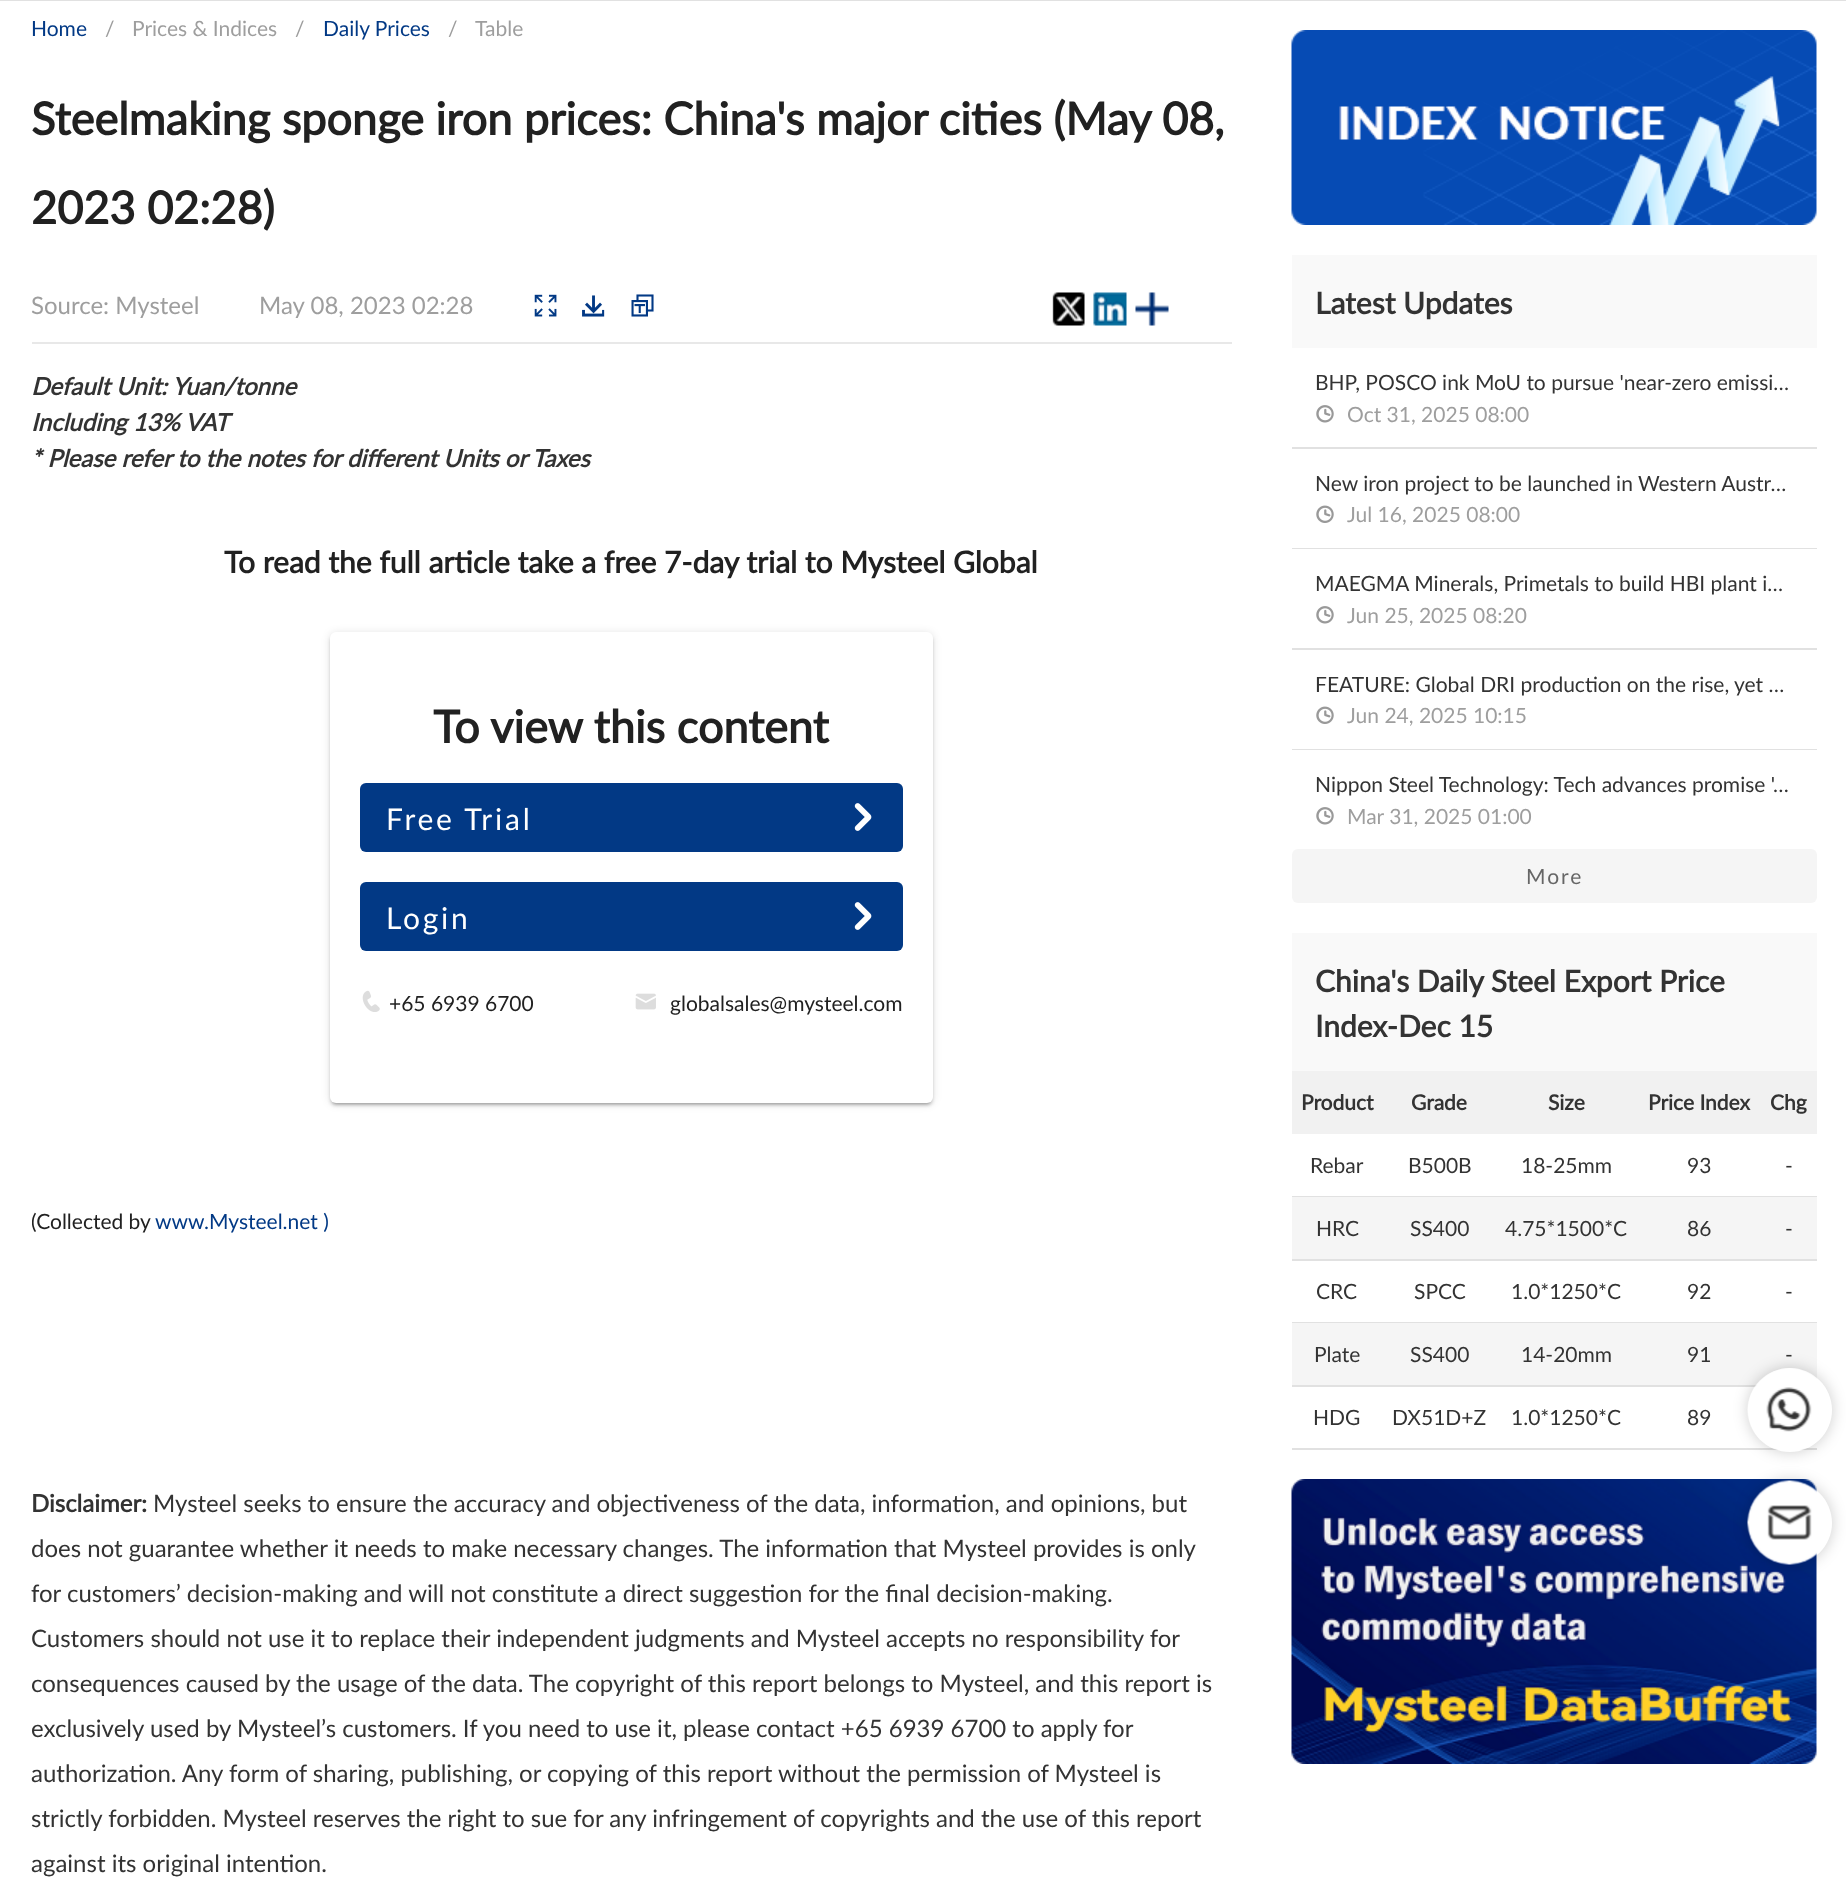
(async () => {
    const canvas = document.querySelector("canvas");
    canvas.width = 1846;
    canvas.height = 1902;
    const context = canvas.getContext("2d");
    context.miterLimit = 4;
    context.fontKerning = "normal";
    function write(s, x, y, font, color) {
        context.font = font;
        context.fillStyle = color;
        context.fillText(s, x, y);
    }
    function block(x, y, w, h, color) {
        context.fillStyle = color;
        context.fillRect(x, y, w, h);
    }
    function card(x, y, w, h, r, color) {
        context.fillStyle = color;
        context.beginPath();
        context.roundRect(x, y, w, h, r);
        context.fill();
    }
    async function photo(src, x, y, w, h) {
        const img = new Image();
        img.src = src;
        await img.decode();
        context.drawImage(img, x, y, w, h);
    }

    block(0, 0, 1846, 1902, "rgb(255, 255, 255)");
    block(0, 0, 1846, 1, "rgb(225, 225, 225)");
    write("Home", 31, 36, "21px Lato", "rgb(2, 57, 133)");
    write("/", 105, 36, "21px Lato", "rgb(158, 158, 158)");
    write("Prices & Indices", 132, 36, "21px Lato", "rgb(158, 158, 158)");
    write("/", 295, 36, "21px Lato", "rgb(158, 158, 158)");
    write("Daily Prices", 323, 36, "21px Lato", "rgb(2, 57, 133)");
    write("/", 448, 36, "21px Lato", "rgb(158, 158, 158)");
    write("Table", 475, 36, "21px Lato", "rgb(158, 158, 158)");
    block(32, 342, 1200, 2, "rgb(232, 232, 232)");
    write("Steelmaking sponge iron prices: China's major cities (May 08,", 31, 135, "bold 45px Lato", "rgb(33, 33, 33)");
    write("2023 02:28)", 31, 224, "bold 45px Lato", "rgb(33, 33, 33)");
    write("Source: Mysteel", 31, 314, "24px Lato", "rgb(158, 158, 158)");
    write("May 08, 2023 02:28", 259, 314, "24px Lato", "rgb(158, 158, 158)");
    await photo("media/1.png", 534, 294, 23, 23);
    await photo("media/2.png", 582, 295, 23, 22);
    await photo("media/3.png", 631, 294, 23, 23);
    await photo("media/4.png", 1052, 292, 33, 34);
    await photo("media/5.png", 1093, 292, 34, 34);
    await photo("media/6.png", 1135, 292, 34, 34);
    write("Default Unit: Yuan/tonne", 31, 395, "italic bold 24px Lato", "rgb(51, 51, 51)");
    write("Including 13% VAT", 31, 431, "italic bold 24px Lato", "rgb(51, 51, 51)");
    write("* Please refer to the notes for different Units or Taxes", 31, 467, "italic bold 24px Lato", "rgb(51, 51, 51)");
    write("To read the full article take a free 7-day trial to Mysteel Global", 224, 573, "bold 30px Lato", "rgb(33, 33, 33)");
    context.fillStyle = "rgba(0, 0, 0, 0.12)";
    context.filter = "blur(4px)";
    context.beginPath();
    context.roundRect(330, 633, 603, 471, 6);
    context.fill();
    context.filter = "none";
    context.fillStyle = "rgba(0, 0, 0, 0.14)";
    context.filter = "blur(1.5px)";
    context.beginPath();
    context.roundRect(330, 635, 603, 471, 6);
    context.fill();
    context.filter = "none";
    context.fillStyle = "rgba(0, 0, 0, 0.2)";
    context.filter = "blur(1px)";
    context.beginPath();
    context.roundRect(333, 639, 597, 465, 3);
    context.fill();
    context.filter = "none";
    card(330, 632, 603, 471, 6, "rgb(255, 255, 255)");
    write("To view this content", 433, 743, "bold 45px Lato", "rgb(33, 33, 33)");
    card(360, 783, 543, 69, 6, "rgb(2, 57, 133)");
    context.letterSpacing = "2.75px";
    write("Free Trial", 386, 830, "30px Lato", "rgb(255, 255, 255)");
    await photo("media/7.png", 854, 803, 18, 28);
    card(360, 882, 543, 69, 6, "rgb(2, 57, 133)");
    write("Login", 386, 929, "30px Lato", "rgb(255, 255, 255)");
    await photo("media/7.png", 854, 902, 18, 28);
    await photo("media/8.png", 362, 990, 18, 22);
    context.letterSpacing = "0px";
    write("+65 6939 6700", 389, 1011, "21px Lato", "rgb(33, 33, 33)");
    await photo("media/9.png", 635, 993, 21, 17);
    write("globalsales@mysteel.com", 670, 1011, "21px Lato", "rgb(33, 33, 33)");
    context.save();
    context.beginPath();
    context.rect(32, 1109, 1200, 300);
    context.clip();
    write("(Collected by", 31, 1229, "21px Lato", "rgb(33, 33, 33)");
    context.restore();
    write("www.Mysteel.net )", 155, 1229, "21px Lato", "rgb(2, 57, 133)");
    write("Disclaimer:", 31, 1512, "bold 24px Lato", "rgb(51, 51, 51)");
    write("Mysteel seeks to ensure the accuracy and objectiveness of the data, information, and opinions, but", 153, 1512, "24px Lato", "rgb(51, 51, 51)");
    write("does not guarantee whether it needs to make necessary changes. The information that Mysteel provides is only", 31, 1557, "24px Lato", "rgb(51, 51, 51)");
    write("for customers’ decision-making and will not constitute a direct suggestion for the final decision-making.", 31, 1602, "24px Lato", "rgb(51, 51, 51)");
    write("Customers should not use it to replace their independent judgments and Mysteel accepts no responsibility for", 31, 1647, "24px Lato", "rgb(51, 51, 51)");
    write("consequences caused by the usage of the data. The copyright of this report belongs to Mysteel, and this report is", 31, 1692, "24px Lato", "rgb(51, 51, 51)");
    write("exclusively used by Mysteel’s customers. If you need to use it, please contact +65 6939 6700 to apply for", 31, 1737, "24px Lato", "rgb(51, 51, 51)");
    write("authorization. Any form of sharing, publishing, or copying of this report without the permission of Mysteel is", 31, 1782, "24px Lato", "rgb(51, 51, 51)");
    write("strictly forbidden. Mysteel reserves the right to sue for any infringement of copyrights and the use of this report", 31, 1827, "24px Lato", "rgb(51, 51, 51)");
    write("against its original intention.", 31, 1872, "24px Lato", "rgb(51, 51, 51)");
    await photo("media/10.png", 1291, 30, 526, 195);
    block(1292, 255, 525, 93, "rgb(249, 249, 249)");
    write("Latest Updates", 1315, 314, "bold 30px Lato", "rgb(51, 51, 51)");
    block(1292, 447, 525, 2, "rgb(225, 225, 225)");
    write("BHP, POSCO ink MoU to pursue 'near-zero emissi…", 1315, 390, "21px Lato", "rgb(51, 51, 51)");
    await photo("media/11.png", 1316, 405, 18, 18);
    write("Oct 31, 2025 08:00", 1347, 422, "21px Lato", "rgb(158, 158, 158)");
    block(1292, 548, 525, 1, "rgb(225, 225, 225)");
    write("New iron project to be launched in Western Austr…", 1315, 491, "21px Lato", "rgb(51, 51, 51)");
    await photo("media/12.png", 1316, 505, 18, 18);
    write("Jul 16, 2025 08:00", 1347, 522, "21px Lato", "rgb(158, 158, 158)");
    block(1292, 648, 525, 2, "rgb(225, 225, 225)");
    write("MAEGMA Minerals, Primetals to build HBI plant i…", 1315, 591, "21px Lato", "rgb(51, 51, 51)");
    await photo("media/11.png", 1316, 606, 18, 18);
    write("Jun 25, 2025 08:20", 1347, 623, "21px Lato", "rgb(158, 158, 158)");
    block(1292, 749, 525, 1, "rgb(225, 225, 225)");
    write("FEATURE: Global DRI production on the rise, yet …", 1315, 692, "21px Lato", "rgb(51, 51, 51)");
    await photo("media/12.png", 1316, 706, 18, 18);
    write("Jun 24, 2025 10:15", 1347, 723, "21px Lato", "rgb(158, 158, 158)");
    write("Nippon Steel Technology: Tech advances promise '…", 1315, 792, "21px Lato", "rgb(51, 51, 51)");
    await photo("media/11.png", 1316, 807, 18, 18);
    write("Mar 31, 2025 01:00", 1347, 824, "21px Lato", "rgb(158, 158, 158)");
    card(1292, 849, 525, 54, 6, "rgb(245, 245, 245)");
    context.letterSpacing = "2px";
    write("More", 1526, 884, "21px Lato", "rgb(102, 102, 102)");
    block(1292, 933, 525, 138, "rgb(249, 249, 249)");
    context.letterSpacing = "0px";
    write("China's Daily Steel Export Price", 1315, 992, "bold 30px Lato", "rgb(51, 51, 51)");
    write("Index-Dec 15", 1315, 1037, "bold 30px Lato", "rgb(51, 51, 51)");
    block(1292, 1071, 525, 63, "rgb(241, 241, 241)");
    write("Product", 1301, 1110, "bold 21px Lato", "rgb(51, 51, 51)");
    write("Grade", 1411, 1110, "bold 21px Lato", "rgb(51, 51, 51)");
    write("Size", 1548, 1110, "bold 21px Lato", "rgb(51, 51, 51)");
    write("Price Index", 1648, 1110, "bold 21px Lato", "rgb(51, 51, 51)");
    write("Chg", 1770, 1110, "bold 21px Lato", "rgb(51, 51, 51)");
    block(1292, 1196, 525, 1, "rgb(225, 225, 225)");
    write("Rebar", 1310, 1173, "21px Lato", "rgb(51, 51, 51)");
    write("B500B", 1408, 1173, "21px Lato", "rgb(51, 51, 51)");
    write("18-25mm", 1521, 1173, "21px Lato", "rgb(51, 51, 51)");
    write("93", 1687, 1173, "21px Lato", "rgb(51, 51, 51)");
    write("-", 1785, 1173, "21px Lato", "rgb(51, 51, 51)");
    block(1292, 1197, 525, 62, "rgb(245, 245, 245)");
    block(1292, 1259, 525, 2, "rgb(225, 225, 225)");
    write("HRC", 1316, 1236, "21px Lato", "rgb(51, 51, 51)");
    write("SS400", 1410, 1236, "21px Lato", "rgb(51, 51, 51)");
    write("4.75*1500*C", 1505, 1236, "21px Lato", "rgb(51, 51, 51)");
    write("86", 1687, 1236, "21px Lato", "rgb(51, 51, 51)");
    write("-", 1785, 1236, "21px Lato", "rgb(51, 51, 51)");
    block(1292, 1322, 525, 1, "rgb(225, 225, 225)");
    write("CRC", 1316, 1299, "21px Lato", "rgb(51, 51, 51)");
    write("SPCC", 1414, 1299, "21px Lato", "rgb(51, 51, 51)");
    write("1.0*1250*C", 1511, 1299, "21px Lato", "rgb(51, 51, 51)");
    write("92", 1687, 1299, "21px Lato", "rgb(51, 51, 51)");
    write("-", 1785, 1299, "21px Lato", "rgb(51, 51, 51)");
    block(1292, 1323, 525, 62, "rgb(245, 245, 245)");
    block(1292, 1385, 469, 2, "rgb(225, 225, 225)");
    write("Plate", 1314, 1362, "21px Lato", "rgb(51, 51, 51)");
    write("SS400", 1410, 1362, "21px Lato", "rgb(51, 51, 51)");
    write("14-20mm", 1521, 1362, "21px Lato", "rgb(51, 51, 51)");
    write("91", 1687, 1362, "21px Lato", "rgb(51, 51, 51)");
    write("-", 1785, 1362, "21px Lato", "rgb(51, 51, 51)");
    block(1292, 1448, 525, 2, "rgb(225, 225, 225)");
    write("HDG", 1313, 1425, "21px Lato", "rgb(51, 51, 51)");
    write("DX51D+Z", 1392, 1425, "21px Lato", "rgb(51, 51, 51)");
    write("1.0*1250*C", 1511, 1425, "21px Lato", "rgb(51, 51, 51)");
    write("89", 1687, 1425, "21px Lato", "rgb(51, 51, 51)");
    await photo("media/13.png", 1291, 1479, 526, 285);
    context.save();
    context.beginPath();
    context.moveTo(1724, 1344);
    context.lineTo(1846, 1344);
    context.lineTo(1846, 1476);
    context.lineTo(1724, 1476);
    context.closePath();
    context.moveTo(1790, 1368);
    context.bezierCurveTo(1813, 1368, 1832, 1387, 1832, 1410);
    context.bezierCurveTo(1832, 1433, 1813, 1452, 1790, 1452);
    context.bezierCurveTo(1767, 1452, 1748, 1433, 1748, 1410);
    context.bezierCurveTo(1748, 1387, 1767, 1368, 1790, 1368);
    context.closePath();
    context.clip("evenodd");
    context.fillStyle = "rgba(0, 0, 0, 0.2)";
    context.filter = "blur(7.5px)";
    context.beginPath();
    context.roundRect(1748, 1368, 84, 84, 42);
    context.fill();
    context.filter = "none";
    context.restore();
    await photo("media/14.png", 1747, 1368, 85, 82);
    context.save();
    context.beginPath();
    context.moveTo(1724, 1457);
    context.lineTo(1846, 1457);
    context.lineTo(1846, 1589);
    context.lineTo(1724, 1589);
    context.closePath();
    context.moveTo(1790, 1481);
    context.bezierCurveTo(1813, 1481, 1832, 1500, 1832, 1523);
    context.bezierCurveTo(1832, 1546, 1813, 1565, 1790, 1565);
    context.bezierCurveTo(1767, 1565, 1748, 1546, 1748, 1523);
    context.bezierCurveTo(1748, 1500, 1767, 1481, 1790, 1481);
    context.closePath();
    context.clip("evenodd");
    context.fillStyle = "rgba(0, 0, 0, 0.2)";
    context.filter = "blur(7.5px)";
    context.beginPath();
    context.roundRect(1748, 1481, 84, 84, 42);
    context.fill();
    context.filter = "none";
    context.restore();
    await photo("media/15.png", 1747, 1480, 85, 85);
})();
